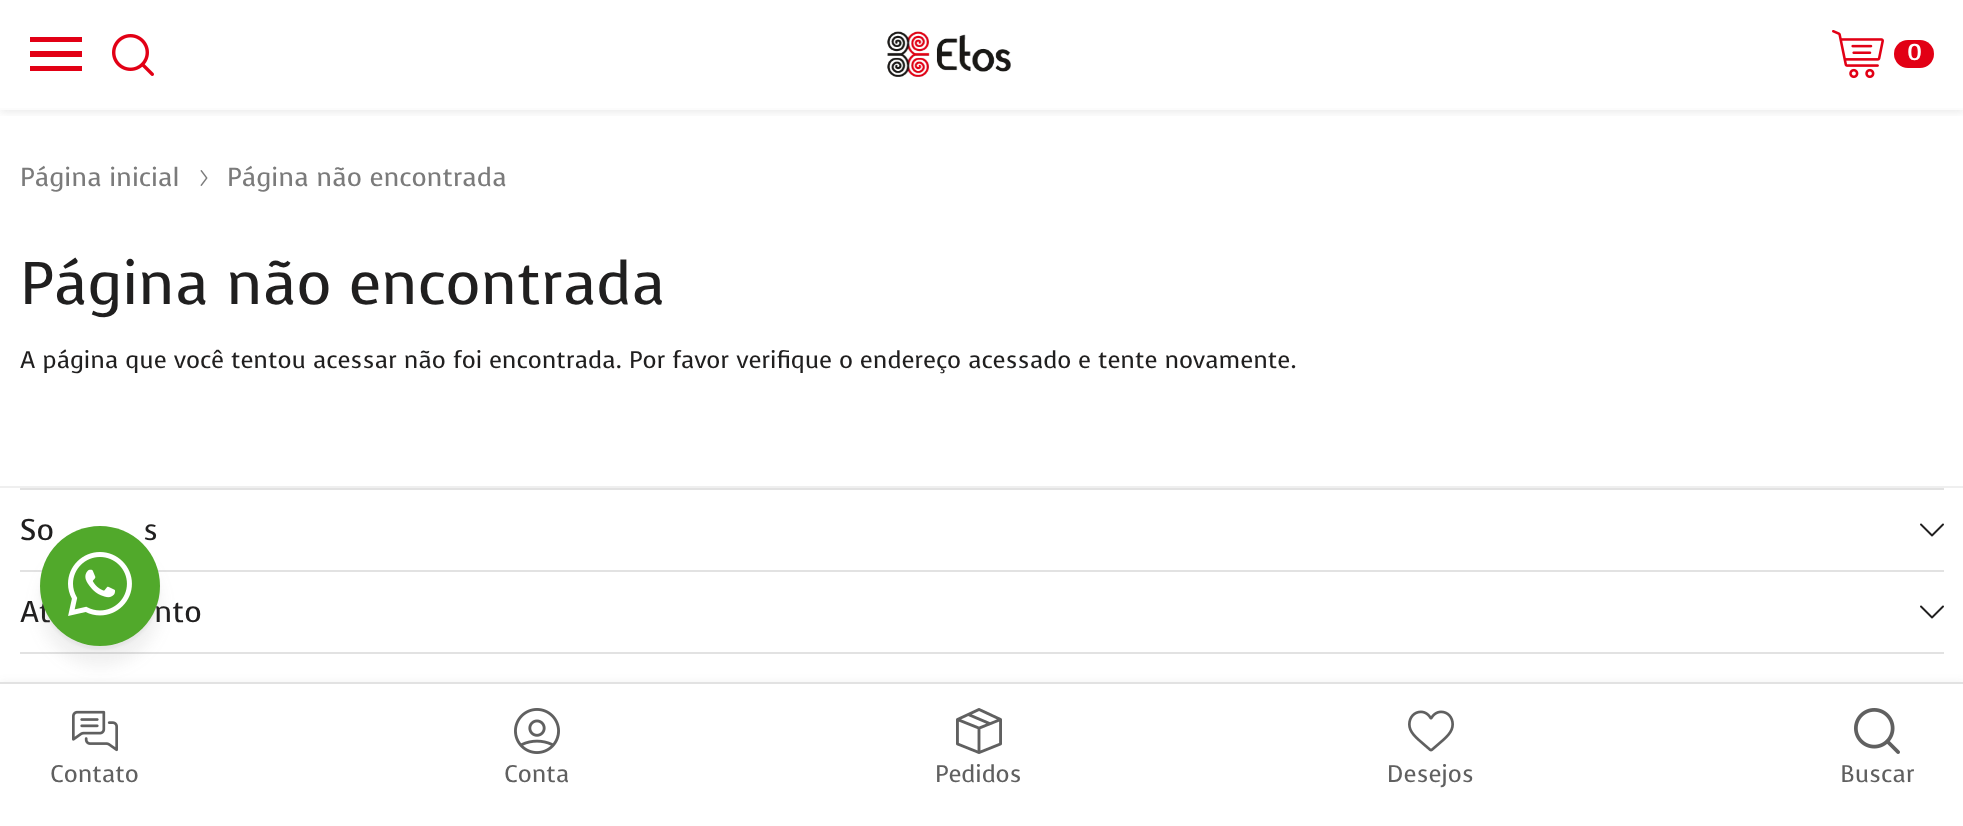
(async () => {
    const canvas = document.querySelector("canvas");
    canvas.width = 1963;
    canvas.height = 826;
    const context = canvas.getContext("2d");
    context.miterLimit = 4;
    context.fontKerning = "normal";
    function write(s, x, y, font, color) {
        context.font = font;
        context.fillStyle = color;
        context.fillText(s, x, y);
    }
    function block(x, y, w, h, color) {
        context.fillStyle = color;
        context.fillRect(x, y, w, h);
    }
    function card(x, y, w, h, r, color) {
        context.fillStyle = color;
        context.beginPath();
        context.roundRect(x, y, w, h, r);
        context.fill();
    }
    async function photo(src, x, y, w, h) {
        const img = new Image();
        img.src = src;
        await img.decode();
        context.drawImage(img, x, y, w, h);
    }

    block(0, 0, 1963, 826, "rgb(255, 255, 255)");
    context.save();
    context.beginPath();
    context.rect(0, 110, 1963, 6);
    context.clip();
    context.fillStyle = "rgba(82, 82, 82, 0.13)";
    context.filter = "blur(4px)";
    context.beginPath();
    context.rect(0, 2, 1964, 110);
    context.fill();
    context.filter = "none";
    context.restore();
    block(0, 108, 1963, 2, "rgb(252, 252, 252)");
    block(30, 66, 52, 5, "rgb(226, 0, 21)");
    block(30, 51, 52, 6, "rgb(226, 0, 21)");
    block(30, 37, 52, 5, "rgb(226, 0, 21)");
    await photo("media/1.png", 112, 34, 42, 42);
    await photo("media/2.png", 887, 31, 124, 46);
    await photo("media/3.png", 1832, 30, 52, 49);
    card(1894, 40, 40, 28, 14, "rgb(226, 0, 21)");
    write("0", 1907, 60, "bold 22px Voces", "rgb(255, 255, 255)");
    write("Página inicial", 20, 186, "26px Voces", "rgb(123, 123, 123)");
    await photo("media/4.png", 200, 170, 8, 16);
    write("Página não encontrada", 227, 186, "26px Voces", "rgb(123, 123, 123)");
    write("Página não encontrada", 20, 304, "60px Voces", "rgb(32, 31, 31)");
    write("A página que você tentou acessar não foi encontrada. Por favor verifique o endereço acessado e tente novamente.", 20, 368, "24px Voces", "rgb(32, 31, 31)");
    block(0, 486, 1963, 2, "rgb(239, 239, 239)");
    block(20, 488, 1924, 2, "rgb(226, 226, 226)");
    write("So", 20, 540, "30px Voces", "rgb(32, 31, 31)");
    write("s", 143, 540, "30px Voces", "rgb(32, 31, 31)");
    await photo("media/5.png", 1920, 523, 24, 14);
    block(20, 570, 1924, 2, "rgb(226, 226, 226)");
    write("At", 20, 622, "30px Voces", "rgb(32, 31, 31)");
    write("nto", 154, 622, "30px Voces", "rgb(32, 31, 31)");
    await photo("media/5.png", 1920, 605, 24, 14);
    block(20, 652, 1924, 2, "rgb(226, 226, 226)");
    context.fillStyle = "rgba(103, 103, 103, 0.1)";
    context.filter = "blur(8px)";
    context.beginPath();
    context.roundRect(40, 546, 120, 120, 60);
    context.fill();
    context.filter = "none";
    context.fillStyle = "rgba(0, 0, 0, 0.04)";
    context.filter = "blur(1px)";
    context.beginPath();
    context.roundRect(40, 530, 120, 120, 60);
    context.fill();
    context.filter = "none";
    context.fillStyle = "rgb(81, 169, 43)";
    context.beginPath();
    context.arc(100, 586, 60, 0, Math.PI * 2);
    context.fill();
    await photo("media/6.png", 68, 552, 64, 64);
    context.fillStyle = "rgba(82, 82, 82, 0.08)";
    context.filter = "blur(4px)";
    context.beginPath();
    context.rect(0, 682, 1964, 144);
    context.fill();
    context.filter = "none";
    block(0, 684, 1963, 142, "rgb(255, 255, 255)");
    block(0, 682, 1963, 2, "rgb(226, 226, 226)");
    await photo("media/7.png", 72, 710, 46, 42);
    write("Contato", 50, 782, "24px Voces", "rgb(96, 96, 96)");
    await photo("media/8.png", 514, 708, 46, 46);
    write("Conta", 504, 782, "24px Voces", "rgb(96, 96, 96)");
    await photo("media/9.png", 956, 708, 46, 46);
    write("Pedidos", 935, 782, "24px Voces", "rgb(96, 96, 96)");
    await photo("media/10.png", 1408, 710, 46, 42);
    write("Desejos", 1387, 782, "24px Voces", "rgb(96, 96, 96)");
    await photo("media/11.png", 1854, 708, 46, 46);
    write("Buscar", 1840, 782, "24px Voces", "rgb(96, 96, 96)");
})();
